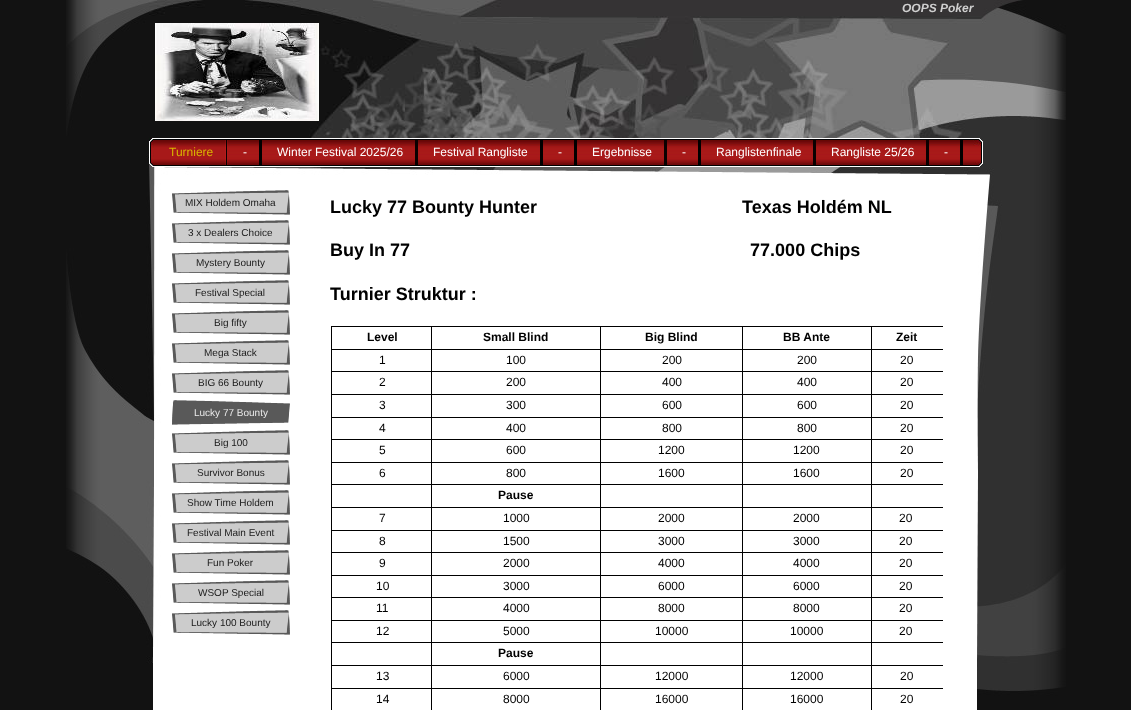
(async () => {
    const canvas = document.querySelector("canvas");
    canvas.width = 1131;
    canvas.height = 710;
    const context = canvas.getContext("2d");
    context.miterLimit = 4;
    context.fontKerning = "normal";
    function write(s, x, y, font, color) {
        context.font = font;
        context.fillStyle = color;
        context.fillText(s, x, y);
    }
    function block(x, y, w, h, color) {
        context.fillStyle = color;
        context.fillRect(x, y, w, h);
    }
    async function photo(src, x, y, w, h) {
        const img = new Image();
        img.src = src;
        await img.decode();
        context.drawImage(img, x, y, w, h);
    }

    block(0, 0, 1131, 710, "rgb(18, 18, 18)");
    await photo("media/1.png", 66, 0, 1000, 710);
    await photo("media/2.png", 149, 0, 834, 138);
    write("OOPS Poker", 902, 12, "italic bold 12px Liberation Sans", "rgb(207, 207, 207)");
    await photo("media/3.png", 155, 23, 164, 98);
    await photo("media/4.png", 149, 138, 834, 29);
    await photo("media/5.png", 154, 140, 74, 25);
    write("Turniere", 169, 156, "12px Liberation Sans", "rgb(217, 182, 2)");
    block(259, 140, 3, 25, "rgb(0, 0, 0)");
    write("-", 243, 156, "12px Liberation Sans", "rgb(255, 255, 255)");
    block(415, 140, 3, 25, "rgb(10, 1, 1)");
    write("Winter Festival 2025/26", 277, 156, "12px Liberation Sans", "rgb(255, 255, 255)");
    block(540, 140, 3, 25, "rgb(0, 0, 0)");
    write("Festival Rangliste", 433, 156, "12px Liberation Sans", "rgb(255, 255, 255)");
    block(574, 140, 3, 25, "rgb(0, 0, 0)");
    write("-", 558, 156, "12px Liberation Sans", "rgb(255, 255, 255)");
    block(664, 140, 3, 25, "rgb(10, 1, 1)");
    write("Ergebnisse", 592, 156, "12px Liberation Sans", "rgb(255, 255, 255)");
    block(698, 140, 3, 25, "rgb(0, 0, 0)");
    write("-", 682, 156, "12px Liberation Sans", "rgb(255, 255, 255)");
    block(813, 140, 3, 25, "rgb(10, 1, 1)");
    write("Ranglistenfinale", 716, 156, "12px Liberation Sans", "rgb(255, 255, 255)");
    block(926, 140, 3, 25, "rgb(10, 1, 1)");
    write("Rangliste 25/26", 831, 156, "12px Liberation Sans", "rgb(255, 255, 255)");
    block(960, 140, 3, 25, "rgb(0, 0, 0)");
    write("-", 944, 156, "12px Liberation Sans", "rgb(255, 255, 255)");
    block(153, 647, 824, 63, "rgb(255, 255, 255)");
    await photo("media/6.png", 153, 167, 824, 480);
    await photo("media/7.png", 172, 190, 118, 25);
    write("MIX Holdem Omaha", 185, 206, "10px Liberation Sans", "rgb(26, 26, 26)");
    await photo("media/7.png", 172, 220, 118, 25);
    write("3 x Dealers Choice", 188, 236, "10px Liberation Sans", "rgb(26, 26, 26)");
    await photo("media/7.png", 172, 250, 118, 25);
    write("Mystery Bounty", 196, 266, "10px Liberation Sans", "rgb(26, 26, 26)");
    await photo("media/7.png", 172, 280, 118, 25);
    write("Festival Special", 195, 296, "10px Liberation Sans", "rgb(26, 26, 26)");
    await photo("media/7.png", 172, 310, 118, 25);
    write("Big fifty", 214, 326, "10px Liberation Sans", "rgb(26, 26, 26)");
    await photo("media/7.png", 172, 340, 118, 25);
    write("Mega Stack", 204, 356, "10px Liberation Sans", "rgb(26, 26, 26)");
    await photo("media/7.png", 172, 370, 118, 25);
    write("BIG 66 Bounty", 198, 386, "10px Liberation Sans", "rgb(26, 26, 26)");
    await photo("media/8.png", 172, 400, 118, 25);
    write("Lucky 77 Bounty", 194, 416, "10px Liberation Sans", "rgb(234, 234, 234)");
    await photo("media/7.png", 172, 430, 118, 25);
    write("Big 100", 214, 446, "10px Liberation Sans", "rgb(26, 26, 26)");
    await photo("media/7.png", 172, 460, 118, 25);
    write("Survivor Bonus", 197, 476, "10px Liberation Sans", "rgb(26, 26, 26)");
    await photo("media/7.png", 172, 490, 118, 25);
    write("Show Time Holdem", 187, 506, "10px Liberation Sans", "rgb(26, 26, 26)");
    await photo("media/7.png", 172, 520, 118, 25);
    write("Festival Main Event", 187, 536, "10px Liberation Sans", "rgb(26, 26, 26)");
    await photo("media/7.png", 172, 550, 118, 25);
    write("Fun Poker", 207, 566, "10px Liberation Sans", "rgb(26, 26, 26)");
    await photo("media/7.png", 172, 580, 118, 25);
    write("WSOP Special", 198, 596, "10px Liberation Sans", "rgb(26, 26, 26)");
    await photo("media/7.png", 172, 610, 118, 25);
    write("Lucky 100 Bounty", 191, 626, "10px Liberation Sans", "rgb(26, 26, 26)");
    write("Lucky 77 Bounty Hunter                                         Texas Holdém NL", 330, 213, "bold 18px Liberation Sans", "rgb(0, 0, 0)");
    write("Buy In 77                                                                    77.000 Chips", 330, 256, "bold 18px Liberation Sans", "rgb(0, 0, 0)");
    context.save();
    context.beginPath();
    context.rect(330, 191, 613, 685);
    context.clip();
    write("Turnier Struktur :", 330, 300, "bold 18px Liberation Sans", "rgb(0, 0, 0)");
    context.restore();
    block(871, 326, 72, 1, "rgb(0, 0, 0)");
    block(871, 349, 72, 1, "rgb(0, 0, 0)");
    block(871, 371, 72, 1, "rgb(0, 0, 0)");
    block(871, 394, 72, 1, "rgb(0, 0, 0)");
    block(871, 417, 72, 1, "rgb(0, 0, 0)");
    block(871, 439, 72, 1, "rgb(0, 0, 0)");
    block(871, 462, 72, 1, "rgb(0, 0, 0)");
    block(871, 484, 72, 1, "rgb(0, 0, 0)");
    block(871, 507, 72, 1, "rgb(0, 0, 0)");
    block(871, 530, 72, 1, "rgb(0, 0, 0)");
    block(871, 552, 72, 1, "rgb(0, 0, 0)");
    block(871, 575, 72, 1, "rgb(0, 0, 0)");
    block(871, 597, 72, 1, "rgb(0, 0, 0)");
    block(871, 620, 72, 1, "rgb(0, 0, 0)");
    block(871, 642, 72, 1, "rgb(0, 0, 0)");
    block(871, 665, 72, 1, "rgb(0, 0, 0)");
    block(871, 688, 72, 1, "rgb(0, 0, 0)");
    block(871, 688, 1, 22, "rgb(0, 0, 0)");
    block(742, 688, 130, 1, "rgb(0, 0, 0)");
    block(871, 665, 1, 24, "rgb(0, 0, 0)");
    block(742, 665, 130, 1, "rgb(0, 0, 0)");
    block(871, 642, 1, 24, "rgb(0, 0, 0)");
    block(742, 642, 130, 1, "rgb(0, 0, 0)");
    block(871, 620, 1, 23, "rgb(0, 0, 0)");
    block(742, 620, 130, 1, "rgb(0, 0, 0)");
    block(871, 597, 1, 24, "rgb(0, 0, 0)");
    block(742, 597, 130, 1, "rgb(0, 0, 0)");
    block(871, 575, 1, 23, "rgb(0, 0, 0)");
    block(742, 575, 130, 1, "rgb(0, 0, 0)");
    block(871, 552, 1, 24, "rgb(0, 0, 0)");
    block(742, 552, 130, 1, "rgb(0, 0, 0)");
    block(871, 530, 1, 23, "rgb(0, 0, 0)");
    block(742, 530, 130, 1, "rgb(0, 0, 0)");
    block(871, 507, 1, 24, "rgb(0, 0, 0)");
    block(742, 507, 130, 1, "rgb(0, 0, 0)");
    block(871, 484, 1, 24, "rgb(0, 0, 0)");
    block(742, 484, 130, 1, "rgb(0, 0, 0)");
    block(871, 462, 1, 23, "rgb(0, 0, 0)");
    block(742, 462, 130, 1, "rgb(0, 0, 0)");
    block(871, 439, 1, 24, "rgb(0, 0, 0)");
    block(742, 439, 130, 1, "rgb(0, 0, 0)");
    block(871, 417, 1, 23, "rgb(0, 0, 0)");
    block(742, 417, 130, 1, "rgb(0, 0, 0)");
    block(871, 394, 1, 24, "rgb(0, 0, 0)");
    block(742, 394, 130, 1, "rgb(0, 0, 0)");
    block(871, 371, 1, 24, "rgb(0, 0, 0)");
    block(742, 371, 130, 1, "rgb(0, 0, 0)");
    block(871, 349, 1, 23, "rgb(0, 0, 0)");
    block(742, 349, 130, 1, "rgb(0, 0, 0)");
    block(871, 326, 1, 24, "rgb(0, 0, 0)");
    block(742, 326, 130, 1, "rgb(0, 0, 0)");
    block(742, 688, 1, 22, "rgb(0, 0, 0)");
    block(600, 688, 143, 1, "rgb(0, 0, 0)");
    block(742, 665, 1, 24, "rgb(0, 0, 0)");
    block(600, 665, 143, 1, "rgb(0, 0, 0)");
    block(742, 642, 1, 24, "rgb(0, 0, 0)");
    block(600, 642, 143, 1, "rgb(0, 0, 0)");
    block(742, 620, 1, 23, "rgb(0, 0, 0)");
    block(600, 620, 143, 1, "rgb(0, 0, 0)");
    block(742, 597, 1, 24, "rgb(0, 0, 0)");
    block(600, 597, 143, 1, "rgb(0, 0, 0)");
    block(742, 575, 1, 23, "rgb(0, 0, 0)");
    block(600, 575, 143, 1, "rgb(0, 0, 0)");
    block(742, 552, 1, 24, "rgb(0, 0, 0)");
    block(600, 552, 143, 1, "rgb(0, 0, 0)");
    block(742, 530, 1, 23, "rgb(0, 0, 0)");
    block(600, 530, 143, 1, "rgb(0, 0, 0)");
    block(742, 507, 1, 24, "rgb(0, 0, 0)");
    block(600, 507, 143, 1, "rgb(0, 0, 0)");
    block(742, 484, 1, 24, "rgb(0, 0, 0)");
    block(600, 484, 143, 1, "rgb(0, 0, 0)");
    block(742, 462, 1, 23, "rgb(0, 0, 0)");
    block(600, 462, 143, 1, "rgb(0, 0, 0)");
    block(742, 439, 1, 24, "rgb(0, 0, 0)");
    block(600, 439, 143, 1, "rgb(0, 0, 0)");
    block(742, 417, 1, 23, "rgb(0, 0, 0)");
    block(600, 417, 143, 1, "rgb(0, 0, 0)");
    block(742, 394, 1, 24, "rgb(0, 0, 0)");
    block(600, 394, 143, 1, "rgb(0, 0, 0)");
    block(742, 371, 1, 24, "rgb(0, 0, 0)");
    block(600, 371, 143, 1, "rgb(0, 0, 0)");
    block(742, 349, 1, 23, "rgb(0, 0, 0)");
    block(600, 349, 143, 1, "rgb(0, 0, 0)");
    block(742, 326, 1, 24, "rgb(0, 0, 0)");
    block(600, 326, 143, 1, "rgb(0, 0, 0)");
    block(600, 688, 1, 22, "rgb(0, 0, 0)");
    block(431, 688, 170, 1, "rgb(0, 0, 0)");
    block(600, 665, 1, 24, "rgb(0, 0, 0)");
    block(431, 665, 170, 1, "rgb(0, 0, 0)");
    block(600, 642, 1, 24, "rgb(0, 0, 0)");
    block(431, 642, 170, 1, "rgb(0, 0, 0)");
    block(600, 620, 1, 23, "rgb(0, 0, 0)");
    block(431, 620, 170, 1, "rgb(0, 0, 0)");
    block(600, 597, 1, 24, "rgb(0, 0, 0)");
    block(431, 597, 170, 1, "rgb(0, 0, 0)");
    block(600, 575, 1, 23, "rgb(0, 0, 0)");
    block(431, 575, 170, 1, "rgb(0, 0, 0)");
    block(600, 552, 1, 24, "rgb(0, 0, 0)");
    block(431, 552, 170, 1, "rgb(0, 0, 0)");
    block(600, 530, 1, 23, "rgb(0, 0, 0)");
    block(431, 530, 170, 1, "rgb(0, 0, 0)");
    block(600, 507, 1, 24, "rgb(0, 0, 0)");
    block(431, 507, 170, 1, "rgb(0, 0, 0)");
    block(600, 484, 1, 24, "rgb(0, 0, 0)");
    block(431, 484, 170, 1, "rgb(0, 0, 0)");
    block(600, 462, 1, 23, "rgb(0, 0, 0)");
    block(431, 462, 170, 1, "rgb(0, 0, 0)");
    block(600, 439, 1, 24, "rgb(0, 0, 0)");
    block(431, 439, 170, 1, "rgb(0, 0, 0)");
    block(600, 417, 1, 23, "rgb(0, 0, 0)");
    block(431, 417, 170, 1, "rgb(0, 0, 0)");
    block(600, 394, 1, 24, "rgb(0, 0, 0)");
    block(431, 394, 170, 1, "rgb(0, 0, 0)");
    block(600, 371, 1, 24, "rgb(0, 0, 0)");
    block(431, 371, 170, 1, "rgb(0, 0, 0)");
    block(600, 349, 1, 23, "rgb(0, 0, 0)");
    block(431, 349, 170, 1, "rgb(0, 0, 0)");
    block(600, 326, 1, 24, "rgb(0, 0, 0)");
    block(431, 326, 170, 1, "rgb(0, 0, 0)");
    block(431, 688, 1, 22, "rgb(0, 0, 0)");
    block(331, 688, 101, 1, "rgb(0, 0, 0)");
    block(431, 665, 1, 24, "rgb(0, 0, 0)");
    block(331, 665, 101, 1, "rgb(0, 0, 0)");
    block(431, 642, 1, 24, "rgb(0, 0, 0)");
    block(331, 642, 101, 1, "rgb(0, 0, 0)");
    block(431, 620, 1, 23, "rgb(0, 0, 0)");
    block(331, 620, 101, 1, "rgb(0, 0, 0)");
    block(431, 597, 1, 24, "rgb(0, 0, 0)");
    block(331, 597, 101, 1, "rgb(0, 0, 0)");
    block(431, 575, 1, 23, "rgb(0, 0, 0)");
    block(331, 575, 101, 1, "rgb(0, 0, 0)");
    block(431, 552, 1, 24, "rgb(0, 0, 0)");
    block(331, 552, 101, 1, "rgb(0, 0, 0)");
    block(431, 530, 1, 23, "rgb(0, 0, 0)");
    block(331, 530, 101, 1, "rgb(0, 0, 0)");
    block(431, 507, 1, 24, "rgb(0, 0, 0)");
    block(331, 507, 101, 1, "rgb(0, 0, 0)");
    block(431, 484, 1, 24, "rgb(0, 0, 0)");
    block(331, 484, 101, 1, "rgb(0, 0, 0)");
    block(431, 462, 1, 23, "rgb(0, 0, 0)");
    block(331, 462, 101, 1, "rgb(0, 0, 0)");
    block(431, 439, 1, 24, "rgb(0, 0, 0)");
    block(331, 439, 101, 1, "rgb(0, 0, 0)");
    block(431, 417, 1, 23, "rgb(0, 0, 0)");
    block(331, 417, 101, 1, "rgb(0, 0, 0)");
    block(431, 394, 1, 24, "rgb(0, 0, 0)");
    block(331, 394, 101, 1, "rgb(0, 0, 0)");
    block(431, 371, 1, 24, "rgb(0, 0, 0)");
    block(331, 371, 101, 1, "rgb(0, 0, 0)");
    block(431, 349, 1, 23, "rgb(0, 0, 0)");
    block(331, 349, 101, 1, "rgb(0, 0, 0)");
    block(431, 326, 1, 24, "rgb(0, 0, 0)");
    block(331, 326, 101, 1, "rgb(0, 0, 0)");
    block(331, 688, 1, 22, "rgb(0, 0, 0)");
    block(331, 665, 1, 24, "rgb(0, 0, 0)");
    block(331, 642, 1, 24, "rgb(0, 0, 0)");
    block(331, 620, 1, 23, "rgb(0, 0, 0)");
    block(331, 597, 1, 24, "rgb(0, 0, 0)");
    block(331, 575, 1, 23, "rgb(0, 0, 0)");
    block(331, 552, 1, 24, "rgb(0, 0, 0)");
    block(331, 530, 1, 23, "rgb(0, 0, 0)");
    block(331, 507, 1, 24, "rgb(0, 0, 0)");
    block(331, 484, 1, 24, "rgb(0, 0, 0)");
    block(331, 462, 1, 23, "rgb(0, 0, 0)");
    block(331, 439, 1, 24, "rgb(0, 0, 0)");
    block(331, 417, 1, 23, "rgb(0, 0, 0)");
    block(331, 394, 1, 24, "rgb(0, 0, 0)");
    block(331, 371, 1, 24, "rgb(0, 0, 0)");
    block(331, 349, 1, 23, "rgb(0, 0, 0)");
    block(331, 326, 1, 24, "rgb(0, 0, 0)");
    write("Level", 367, 341, "bold 12px Liberation Sans", "rgb(0, 0, 0)");
    write("Small Blind", 483, 341, "bold 12px Liberation Sans", "rgb(0, 0, 0)");
    write("Big Blind", 645, 341, "bold 12px Liberation Sans", "rgb(0, 0, 0)");
    write("BB Ante", 783, 341, "bold 12px Liberation Sans", "rgb(0, 0, 0)");
    write("Zeit", 896, 341, "bold 12px Liberation Sans", "rgb(0, 0, 0)");
    write("1", 379, 364, "12px Liberation Sans", "rgb(0, 0, 0)");
    write("100", 506, 364, "12px Liberation Sans", "rgb(0, 0, 0)");
    write("200", 662, 364, "12px Liberation Sans", "rgb(0, 0, 0)");
    write("200", 797, 364, "12px Liberation Sans", "rgb(0, 0, 0)");
    write("20", 900, 364, "12px Liberation Sans", "rgb(0, 0, 0)");
    write("2", 379, 386, "12px Liberation Sans", "rgb(0, 0, 0)");
    write("200", 506, 386, "12px Liberation Sans", "rgb(0, 0, 0)");
    write("400", 662, 386, "12px Liberation Sans", "rgb(0, 0, 0)");
    write("400", 797, 386, "12px Liberation Sans", "rgb(0, 0, 0)");
    write("20", 900, 386, "12px Liberation Sans", "rgb(0, 0, 0)");
    write("3", 379, 409, "12px Liberation Sans", "rgb(0, 0, 0)");
    write("300", 506, 409, "12px Liberation Sans", "rgb(0, 0, 0)");
    write("600", 662, 409, "12px Liberation Sans", "rgb(0, 0, 0)");
    write("600", 797, 409, "12px Liberation Sans", "rgb(0, 0, 0)");
    write("20", 900, 409, "12px Liberation Sans", "rgb(0, 0, 0)");
    write("4", 379, 432, "12px Liberation Sans", "rgb(0, 0, 0)");
    write("400", 506, 432, "12px Liberation Sans", "rgb(0, 0, 0)");
    write("800", 662, 432, "12px Liberation Sans", "rgb(0, 0, 0)");
    write("800", 797, 432, "12px Liberation Sans", "rgb(0, 0, 0)");
    write("20", 900, 432, "12px Liberation Sans", "rgb(0, 0, 0)");
    write("5", 379, 454, "12px Liberation Sans", "rgb(0, 0, 0)");
    write("600", 506, 454, "12px Liberation Sans", "rgb(0, 0, 0)");
    write("1200", 658, 454, "12px Liberation Sans", "rgb(0, 0, 0)");
    write("1200", 793, 454, "12px Liberation Sans", "rgb(0, 0, 0)");
    write("20", 900, 454, "12px Liberation Sans", "rgb(0, 0, 0)");
    write("6", 379, 477, "12px Liberation Sans", "rgb(0, 0, 0)");
    write("800", 506, 477, "12px Liberation Sans", "rgb(0, 0, 0)");
    write("1600", 658, 477, "12px Liberation Sans", "rgb(0, 0, 0)");
    write("1600", 793, 477, "12px Liberation Sans", "rgb(0, 0, 0)");
    write("20", 900, 477, "12px Liberation Sans", "rgb(0, 0, 0)");
    write("Pause", 498, 499, "bold 12px Liberation Sans", "rgb(0, 0, 0)");
    write("7", 379, 522, "12px Liberation Sans", "rgb(0, 0, 0)");
    write("1000", 503, 522, "12px Liberation Sans", "rgb(0, 0, 0)");
    write("2000", 658, 522, "12px Liberation Sans", "rgb(0, 0, 0)");
    write("2000", 793, 522, "12px Liberation Sans", "rgb(0, 0, 0)");
    write("20", 899, 522, "12px Liberation Sans", "rgb(0, 0, 0)");
    write("8", 379, 545, "12px Liberation Sans", "rgb(0, 0, 0)");
    write("1500", 503, 545, "12px Liberation Sans", "rgb(0, 0, 0)");
    write("3000", 658, 545, "12px Liberation Sans", "rgb(0, 0, 0)");
    write("3000", 793, 545, "12px Liberation Sans", "rgb(0, 0, 0)");
    write("20", 899, 545, "12px Liberation Sans", "rgb(0, 0, 0)");
    write("9", 379, 567, "12px Liberation Sans", "rgb(0, 0, 0)");
    write("2000", 503, 567, "12px Liberation Sans", "rgb(0, 0, 0)");
    write("4000", 658, 567, "12px Liberation Sans", "rgb(0, 0, 0)");
    write("4000", 793, 567, "12px Liberation Sans", "rgb(0, 0, 0)");
    write("20", 899, 567, "12px Liberation Sans", "rgb(0, 0, 0)");
    write("10", 376, 590, "12px Liberation Sans", "rgb(0, 0, 0)");
    write("3000", 503, 590, "12px Liberation Sans", "rgb(0, 0, 0)");
    write("6000", 658, 590, "12px Liberation Sans", "rgb(0, 0, 0)");
    write("6000", 793, 590, "12px Liberation Sans", "rgb(0, 0, 0)");
    write("20", 899, 590, "12px Liberation Sans", "rgb(0, 0, 0)");
    write("11", 376, 612, "12px Liberation Sans", "rgb(0, 0, 0)");
    write("4000", 503, 612, "12px Liberation Sans", "rgb(0, 0, 0)");
    write("8000", 658, 612, "12px Liberation Sans", "rgb(0, 0, 0)");
    write("8000", 793, 612, "12px Liberation Sans", "rgb(0, 0, 0)");
    write("20", 899, 612, "12px Liberation Sans", "rgb(0, 0, 0)");
    write("12", 376, 635, "12px Liberation Sans", "rgb(0, 0, 0)");
    write("5000", 503, 635, "12px Liberation Sans", "rgb(0, 0, 0)");
    write("10000", 655, 635, "12px Liberation Sans", "rgb(0, 0, 0)");
    write("10000", 790, 635, "12px Liberation Sans", "rgb(0, 0, 0)");
    write("20", 899, 635, "12px Liberation Sans", "rgb(0, 0, 0)");
    write("Pause", 498, 657, "bold 12px Liberation Sans", "rgb(0, 0, 0)");
    write("13", 376, 680, "12px Liberation Sans", "rgb(0, 0, 0)");
    write("6000", 503, 680, "12px Liberation Sans", "rgb(0, 0, 0)");
    write("12000", 655, 680, "12px Liberation Sans", "rgb(0, 0, 0)");
    write("12000", 790, 680, "12px Liberation Sans", "rgb(0, 0, 0)");
    write("20", 900, 680, "12px Liberation Sans", "rgb(0, 0, 0)");
    write("14", 376, 703, "12px Liberation Sans", "rgb(0, 0, 0)");
    write("8000", 503, 703, "12px Liberation Sans", "rgb(0, 0, 0)");
    write("16000", 655, 703, "12px Liberation Sans", "rgb(0, 0, 0)");
    write("16000", 790, 703, "12px Liberation Sans", "rgb(0, 0, 0)");
    write("20", 900, 703, "12px Liberation Sans", "rgb(0, 0, 0)");
})();
